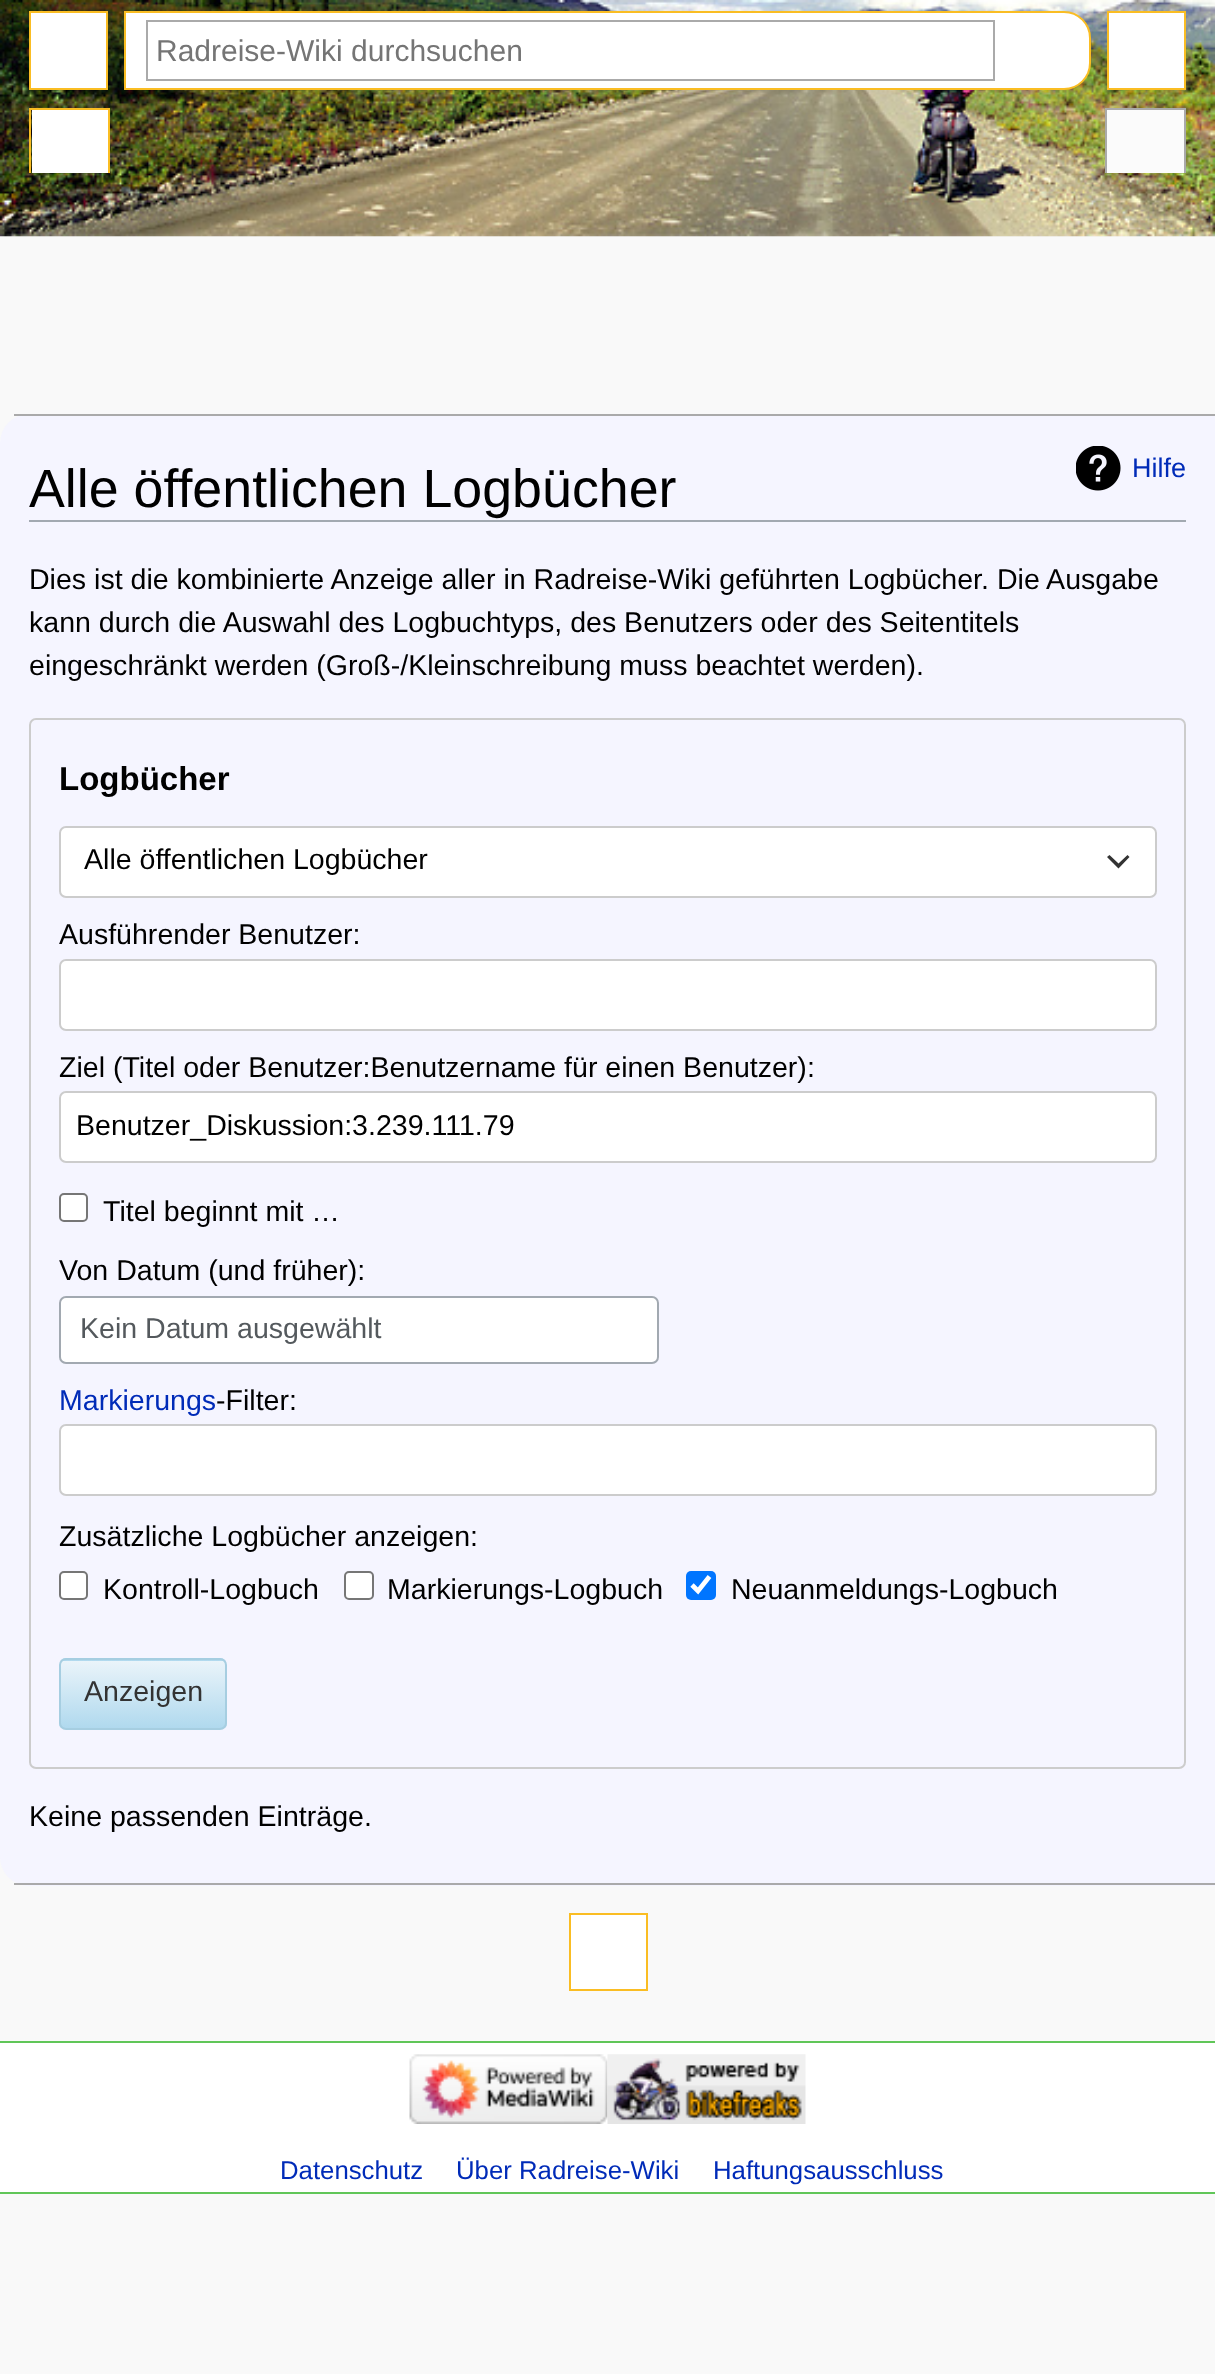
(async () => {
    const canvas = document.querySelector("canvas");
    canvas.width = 1215;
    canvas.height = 2374;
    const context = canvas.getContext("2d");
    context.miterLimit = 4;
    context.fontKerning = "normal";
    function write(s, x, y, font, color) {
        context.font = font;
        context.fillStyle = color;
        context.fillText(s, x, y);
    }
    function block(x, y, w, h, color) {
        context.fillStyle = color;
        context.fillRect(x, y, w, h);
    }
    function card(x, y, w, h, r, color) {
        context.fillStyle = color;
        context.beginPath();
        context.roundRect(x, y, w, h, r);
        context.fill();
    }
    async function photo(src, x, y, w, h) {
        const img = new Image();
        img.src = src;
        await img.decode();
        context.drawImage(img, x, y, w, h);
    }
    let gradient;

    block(0, 0, 1215, 2374, "rgb(249, 249, 249)");
    await photo("media/1.png", 0, 0, 1215, 237);
    context.fillStyle = "rgb(255, 255, 255)";
    context.beginPath();
    context.rect(30, 12, 77, 77);
    context.fill();
    context.strokeStyle = "rgb(250, 189, 35)";
    context.lineWidth = 2;
    context.stroke();
    context.beginPath();
    context.roundRect(125, 12, 965, 77, [0, 26, 26, 0]);
    context.fill();
    context.stroke();
    context.strokeStyle = "rgb(170, 170, 170)";
    context.strokeRect(147, 21, 847, 59);
    write("Radreise-Wiki durchsuchen", 156, 61, "30px Liberation Sans", "rgb(117, 117, 117)");
    context.fillStyle = "rgb(255, 255, 255)";
    context.beginPath();
    context.rect(1108, 12, 77, 77);
    context.fill();
    context.strokeStyle = "rgb(250, 189, 35)";
    context.stroke();
    block(29, 108, 81, 2, "rgb(250, 189, 35)");
    block(108, 108, 2, 65, "rgb(250, 189, 35)");
    block(29, 108, 2, 65, "rgb(250, 189, 35)");
    block(32, 110, 76, 63, "rgb(255, 255, 255)");
    block(1105, 108, 81, 2, "rgb(170, 170, 170)");
    block(1184, 108, 2, 65, "rgb(170, 170, 170)");
    block(1105, 108, 2, 65, "rgb(170, 170, 170)");
    block(1107, 110, 77, 63, "rgb(251, 251, 251)");
    context.fillStyle = "rgb(255, 255, 255)";
    context.beginPath();
    context.rect(570, 1914, 77, 76);
    context.fill();
    context.stroke();
    context.fillStyle = "rgb(245, 245, 255)";
    context.beginPath();
    context.roundRect(0, 414, 1215, 1472, [29, 0, 0, 29]);
    context.fill();
    block(14, 414, 1201, 2, "rgb(170, 170, 170)");
    block(14, 1883, 1201, 2, "rgb(170, 170, 170)");
    block(29, 520, 1157, 2, "rgb(162, 169, 177)");
    write("Alle öffentlichen Logbücher", 29, 507, "53.75px Liberation Sans", "rgb(0, 0, 0)");
    await photo("media/2.png", 1076, 446, 45, 45);
    write("Hilfe", 1132, 477, "27px Liberation Sans", "rgb(0, 43, 184)");
    write("Dies ist die kombinierte Anzeige aller in Radreise-Wiki geführten Logbücher. Die Ausgabe", 29, 589, "28.55px Liberation Sans", "rgb(0, 0, 0)");
    write("kann durch die Auswahl des Logbuchtyps, des Benutzers oder des Seitentitels", 29, 632, "28.55px Liberation Sans", "rgb(0, 0, 0)");
    write("eingeschränkt werden (Groß-/Kleinschreibung muss beachtet werden).", 29, 675, "28.55px Liberation Sans", "rgb(0, 0, 0)");
    context.beginPath();
    context.roundRect(30, 719, 1155, 1049, 6);
    context.strokeStyle = "rgb(204, 204, 204)";
    context.stroke();
    write("Logbücher", 59, 790, "bold 33px Liberation Sans", "rgb(0, 0, 0)");
    context.fillStyle = "rgb(255, 255, 255)";
    context.beginPath();
    context.roundRect(60, 827, 1096, 70, 6);
    context.fill();
    context.stroke();
    write("Alle öffentlichen Logbücher", 84, 869, "28.55px Liberation Sans", "rgb(0, 0, 0)");
    context.fillStyle = "rgb(51, 51, 51)";
    context.beginPath();
    context.moveTo(1127.5, 855);
    context.lineTo(1118.5, 863.5);
    context.lineTo(1109.5, 855);
    context.lineTo(1107, 857);
    context.lineTo(1118.5, 868.5);
    context.lineTo(1129.5, 857);
    context.closePath();
    context.fill();
    write("Ausführender Benutzer:", 59, 944, "28.55px Liberation Sans", "rgb(0, 0, 0)");
    context.fillStyle = "rgb(255, 255, 255)";
    context.beginPath();
    context.roundRect(60, 960, 1096, 70, 6);
    context.fill();
    context.stroke();
    write("Ziel (Titel oder Benutzer:Benutzername für einen Benutzer):", 59, 1077, "28.55px Liberation Sans", "rgb(0, 0, 0)");
    context.fillStyle = "rgb(255, 255, 255)";
    context.beginPath();
    context.roundRect(60, 1092, 1096, 70, 6);
    context.fill();
    context.stroke();
    write("Benutzer_Diskussion:3.239.111.79", 76, 1135, "28.55px Liberation Sans", "rgb(0, 0, 0)");
    context.fillStyle = "rgb(255, 255, 255)";
    context.beginPath();
    context.roundRect(60, 1194, 27, 27, 4);
    context.fill();
    context.strokeStyle = "rgb(118, 118, 118)";
    context.stroke();
    write("Titel beginnt mit …", 103, 1221, "28.55px Liberation Sans", "rgb(0, 0, 0)");
    write("Von Datum (und früher):", 59, 1280, "28.55px Liberation Sans", "rgb(0, 0, 0)");
    context.fillStyle = "rgb(255, 255, 255)";
    context.beginPath();
    context.roundRect(60, 1297, 598, 66, 6);
    context.fill();
    context.strokeStyle = "rgb(162, 169, 177)";
    context.stroke();
    write("Kein Datum ausgewählt", 80, 1338, "28.55px Liberation Sans", "rgb(84, 89, 93)");
    write("Markierungs", 59, 1410, "28.55px Liberation Sans", "rgb(0, 43, 184)");
    write("-Filter:", 216, 1410, "28.55px Liberation Sans", "rgb(0, 0, 0)");
    context.fillStyle = "rgb(255, 255, 255)";
    context.beginPath();
    context.roundRect(60, 1425, 1096, 70, 6);
    context.fill();
    context.strokeStyle = "rgb(204, 204, 204)";
    context.stroke();
    write("Zusätzliche Logbücher anzeigen:", 59, 1546, "28.55px Liberation Sans", "rgb(0, 0, 0)");
    context.fillStyle = "rgb(255, 255, 255)";
    context.beginPath();
    context.roundRect(60, 1572, 27, 27, 4);
    context.fill();
    context.strokeStyle = "rgb(118, 118, 118)";
    context.stroke();
    write("Kontroll-Logbuch", 103, 1599, "28.55px Liberation Sans", "rgb(0, 0, 0)");
    context.fillStyle = "rgb(255, 255, 255)";
    context.beginPath();
    context.roundRect(345, 1572, 28, 27, 4);
    context.fill();
    context.stroke();
    write("Markierungs-Logbuch", 387, 1599, "28.55px Liberation Sans", "rgb(0, 0, 0)");
    card(686, 1571, 30, 29, 5, "rgb(0, 117, 255)");
    context.beginPath();
    context.moveTo(692, 1585);
    context.lineTo(698, 1591);
    context.lineTo(709.5, 1576.5);
    context.strokeStyle = "rgb(255, 255, 255)";
    context.lineWidth = 4.7;
    context.stroke();
    write("Neuanmeldungs-Logbuch", 731, 1599, "28.55px Liberation Sans", "rgb(0, 0, 0)");
    context.save();
    context.beginPath();
    context.roundRect(59, 1658, 168, 72, 7);
    context.clip();
    gradient = context.createLinearGradient(143, 1593, 143, 1661);
    gradient.addColorStop(0, "rgb(234, 244, 250)");
    gradient.addColorStop(1, "rgb(176, 217, 238)");
    context.fillStyle = gradient;
    context.fillRect(59, 1658, 168, 3);
    gradient = context.createLinearGradient(143, 1661, 143, 1728);
    gradient.addColorStop(0, "rgb(234, 244, 250)");
    gradient.addColorStop(1, "rgb(176, 217, 238)");
    context.fillStyle = gradient;
    context.fillRect(59, 1661, 168, 67);
    context.restore();
    context.beginPath();
    context.roundRect(60, 1659, 166, 70, 6);
    context.strokeStyle = "rgb(166, 206, 225)";
    context.lineWidth = 2;
    context.stroke();
    write("Anzeigen", 84, 1701, "28.55px Liberation Sans", "rgb(51, 51, 51)");
    write("Keine passenden Einträge.", 29, 1826, "28.55px Liberation Sans", "rgb(0, 0, 0)");
    block(0, 2043, 1215, 149, "rgb(255, 255, 255)");
    block(0, 2041, 1215, 2, "rgb(96, 198, 88)");
    block(0, 2192, 1215, 2, "rgb(96, 198, 88)");
    await photo("media/3.png", 409, 2054, 199, 70);
    await photo("media/4.png", 607, 2054, 199, 70);
    write("Datenschutz", 280, 2179, "25.75px Liberation Sans", "rgb(0, 43, 184)");
    write("Über Radreise-Wiki", 456, 2179, "25.75px Liberation Sans", "rgb(0, 43, 184)");
    write("Haftungsausschluss", 713, 2179, "25.75px Liberation Sans", "rgb(0, 43, 184)");
})();
